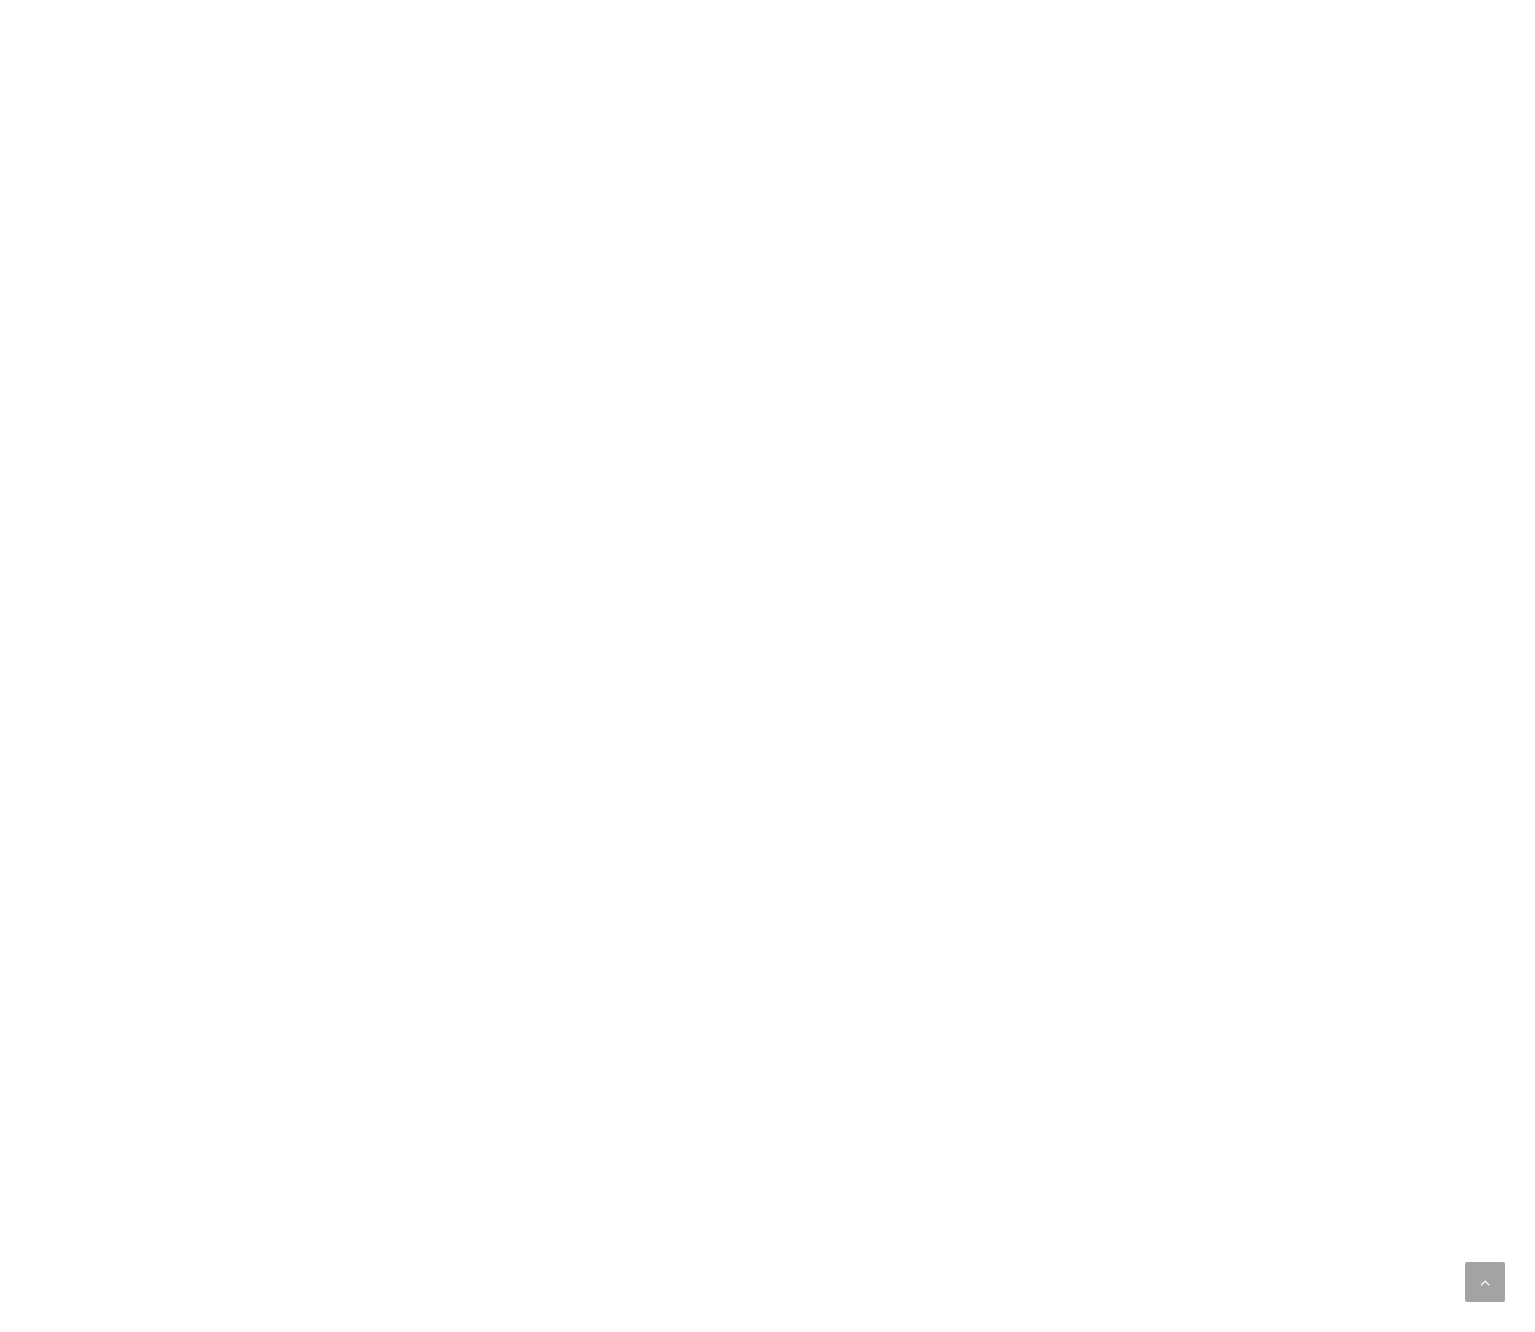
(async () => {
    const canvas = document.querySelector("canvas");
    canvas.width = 1535;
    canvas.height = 1332;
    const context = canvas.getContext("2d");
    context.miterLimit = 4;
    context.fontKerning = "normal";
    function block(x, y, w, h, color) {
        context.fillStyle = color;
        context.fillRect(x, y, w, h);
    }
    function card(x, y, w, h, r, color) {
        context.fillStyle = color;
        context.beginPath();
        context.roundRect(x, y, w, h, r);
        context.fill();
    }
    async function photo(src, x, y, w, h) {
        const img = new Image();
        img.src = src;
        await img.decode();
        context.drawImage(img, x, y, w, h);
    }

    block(0, 0, 1535, 1332, "rgb(255, 255, 255)");
    card(1465, 1262, 40, 40, 2, "rgb(163, 163, 163)");
    await photo("media/1.png", 1480, 1280, 10, 6);
})();
